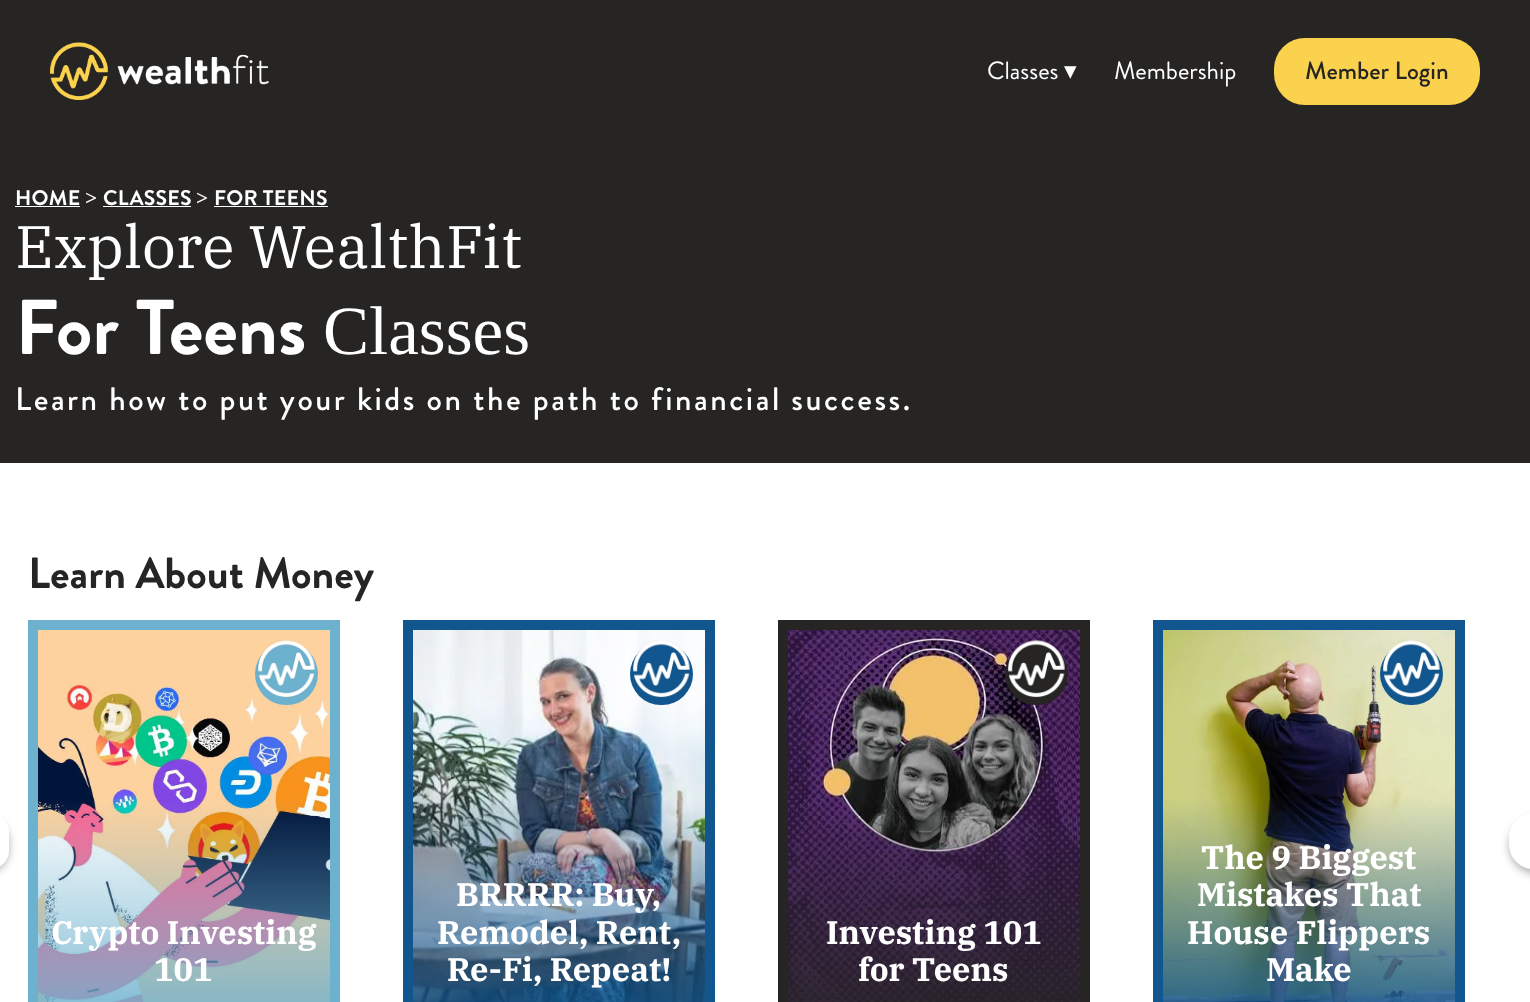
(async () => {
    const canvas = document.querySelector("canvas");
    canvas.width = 1530;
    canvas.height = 1002;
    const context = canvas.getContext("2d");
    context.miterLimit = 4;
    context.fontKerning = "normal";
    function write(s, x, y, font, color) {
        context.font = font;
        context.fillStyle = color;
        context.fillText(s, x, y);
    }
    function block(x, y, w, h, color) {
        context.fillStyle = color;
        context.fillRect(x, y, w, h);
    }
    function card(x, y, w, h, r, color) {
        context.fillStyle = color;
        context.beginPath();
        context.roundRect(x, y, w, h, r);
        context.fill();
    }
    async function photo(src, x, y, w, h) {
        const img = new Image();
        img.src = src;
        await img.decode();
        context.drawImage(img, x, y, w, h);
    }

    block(0, 0, 1530, 1002, "rgb(255, 255, 255)");
    block(0, 0, 1530, 463, "rgb(38, 37, 36)");
    await photo("media/1.png", 50, 42, 219, 58);
    write("Classes", 987, 79, "25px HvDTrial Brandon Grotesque", "rgb(255, 255, 255)");
    write("▾", 1064, 79, "25px DejaVu Sans", "rgb(255, 255, 255)");
    write("Membership", 1114, 79, "25px HvDTrial Brandon Grotesque", "rgb(255, 255, 255)");
    card(1274, 38, 206, 67, 31, "rgb(251, 210, 78)");
    write("Member Login", 1305, 79, "500 25px HvDTrial Brandon Grotesque", "rgb(38, 37, 36)");
    context.letterSpacing = "0.25px";
    write("HOME", 15, 205, "bold 21.25px HvDTrial Brandon Grotesque", "rgb(255, 255, 255)");
    block(15, 206, 65, 1, "rgb(255, 255, 255)");
    write(">", 85, 205, "bold 21.25px Liberation Serif", "rgb(255, 255, 255)");
    write("CLASSES", 103, 205, "bold 21.25px HvDTrial Brandon Grotesque", "rgb(255, 255, 255)");
    block(103, 206, 88, 1, "rgb(255, 255, 255)");
    write(">", 196, 205, "bold 21.25px Liberation Serif", "rgb(255, 255, 255)");
    write("FOR TEENS", 214, 205, "bold 21.25px HvDTrial Brandon Grotesque", "rgb(255, 255, 255)");
    block(214, 206, 114, 1, "rgb(255, 255, 255)");
    context.letterSpacing = "0px";
    write("Explore WealthFit", 15, 268, "60px IBM Plex Serif", "rgb(255, 255, 255)");
    write("For Teens", 15, 354, "bold 77.5px HvDTrial Brandon Grotesque", "rgb(255, 255, 255)");
    write("Classes", 323, 354, "69px Liberation Serif", "rgb(255, 255, 255)");
    context.letterSpacing = "2.5px";
    write("Learn how to put your kids on the path to financial success.", 15, 410, "500 32.5px HvDTrial Brandon Grotesque", "rgb(255, 255, 255)");
    context.letterSpacing = "0px";
    write("Learn About Money", 28, 588, "bold 43.75px HvDTrial Brandon Grotesque", "rgb(38, 37, 36)");
    context.fillStyle = "rgba(0, 0, 0, 0.3)";
    context.filter = "blur(4px)";
    context.beginPath();
    context.roundRect(-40, 818, 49, 56, 28);
    context.fill();
    context.filter = "none";
    card(-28, 813, 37, 56, 28, "rgb(255, 255, 255)");
    context.strokeStyle = "rgb(108, 177, 206)";
    context.lineWidth = 10;
    context.strokeRect(33, 625, 302, 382);
    await photo("media/2.png", 38, 630, 292, 372);
    card(255, 643, 63, 62, 31, "rgb(108, 177, 206)");
    await photo("media/3.png", 257, 640, 58, 58);
    write("Crypto Investing", 51, 944, "bold 32.5px IBM Plex Serif", "rgb(255, 255, 255)");
    write("101", 154, 981, "bold 32.5px IBM Plex Serif", "rgb(255, 255, 255)");
    context.strokeStyle = "rgb(17, 86, 142)";
    context.strokeRect(408, 625, 302, 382);
    await photo("media/4.png", 413, 630, 292, 372);
    card(630, 643, 63, 62, 31, "rgb(17, 86, 142)");
    await photo("media/5.png", 632, 640, 58, 58);
    write("BRRRR: Buy,", 456, 906, "bold 32.5px IBM Plex Serif", "rgb(255, 255, 255)");
    write("Remodel, Rent,", 437, 944, "bold 32.5px IBM Plex Serif", "rgb(255, 255, 255)");
    write("Re-Fi, Repeat!", 447, 981, "bold 32.5px IBM Plex Serif", "rgb(255, 255, 255)");
    context.strokeStyle = "rgb(38, 37, 36)";
    context.strokeRect(783, 625, 302, 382);
    await photo("media/6.png", 788, 630, 292, 372);
    card(1005, 643, 63, 62, 31, "rgb(38, 37, 36)");
    await photo("media/7.png", 1008, 640, 57, 58);
    write("Investing 101", 826, 944, "bold 32.5px IBM Plex Serif", "rgb(255, 255, 255)");
    write("for Teens", 858, 981, "bold 32.5px IBM Plex Serif", "rgb(255, 255, 255)");
    context.strokeStyle = "rgb(17, 86, 142)";
    context.strokeRect(1158, 625, 302, 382);
    await photo("media/8.png", 1163, 630, 292, 372);
    card(1380, 643, 63, 62, 31, "rgb(17, 86, 142)");
    await photo("media/9.png", 1382, 640, 58, 58);
    write("The 9 Biggest", 1201, 869, "bold 32.5px IBM Plex Serif", "rgb(255, 255, 255)");
    write("Mistakes That", 1197, 906, "bold 32.5px IBM Plex Serif", "rgb(255, 255, 255)");
    write("House Flippers", 1187, 944, "bold 32.5px IBM Plex Serif", "rgb(255, 255, 255)");
    write("Make", 1266, 981, "bold 32.5px IBM Plex Serif", "rgb(255, 255, 255)");
    context.fillStyle = "rgba(0, 0, 0, 0.3)";
    context.filter = "blur(4px)";
    context.beginPath();
    context.roundRect(1509, 818, 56, 56, 28);
    context.fill();
    context.filter = "none";
    card(1509, 813, 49, 56, 28, "rgb(255, 255, 255)");
})();
